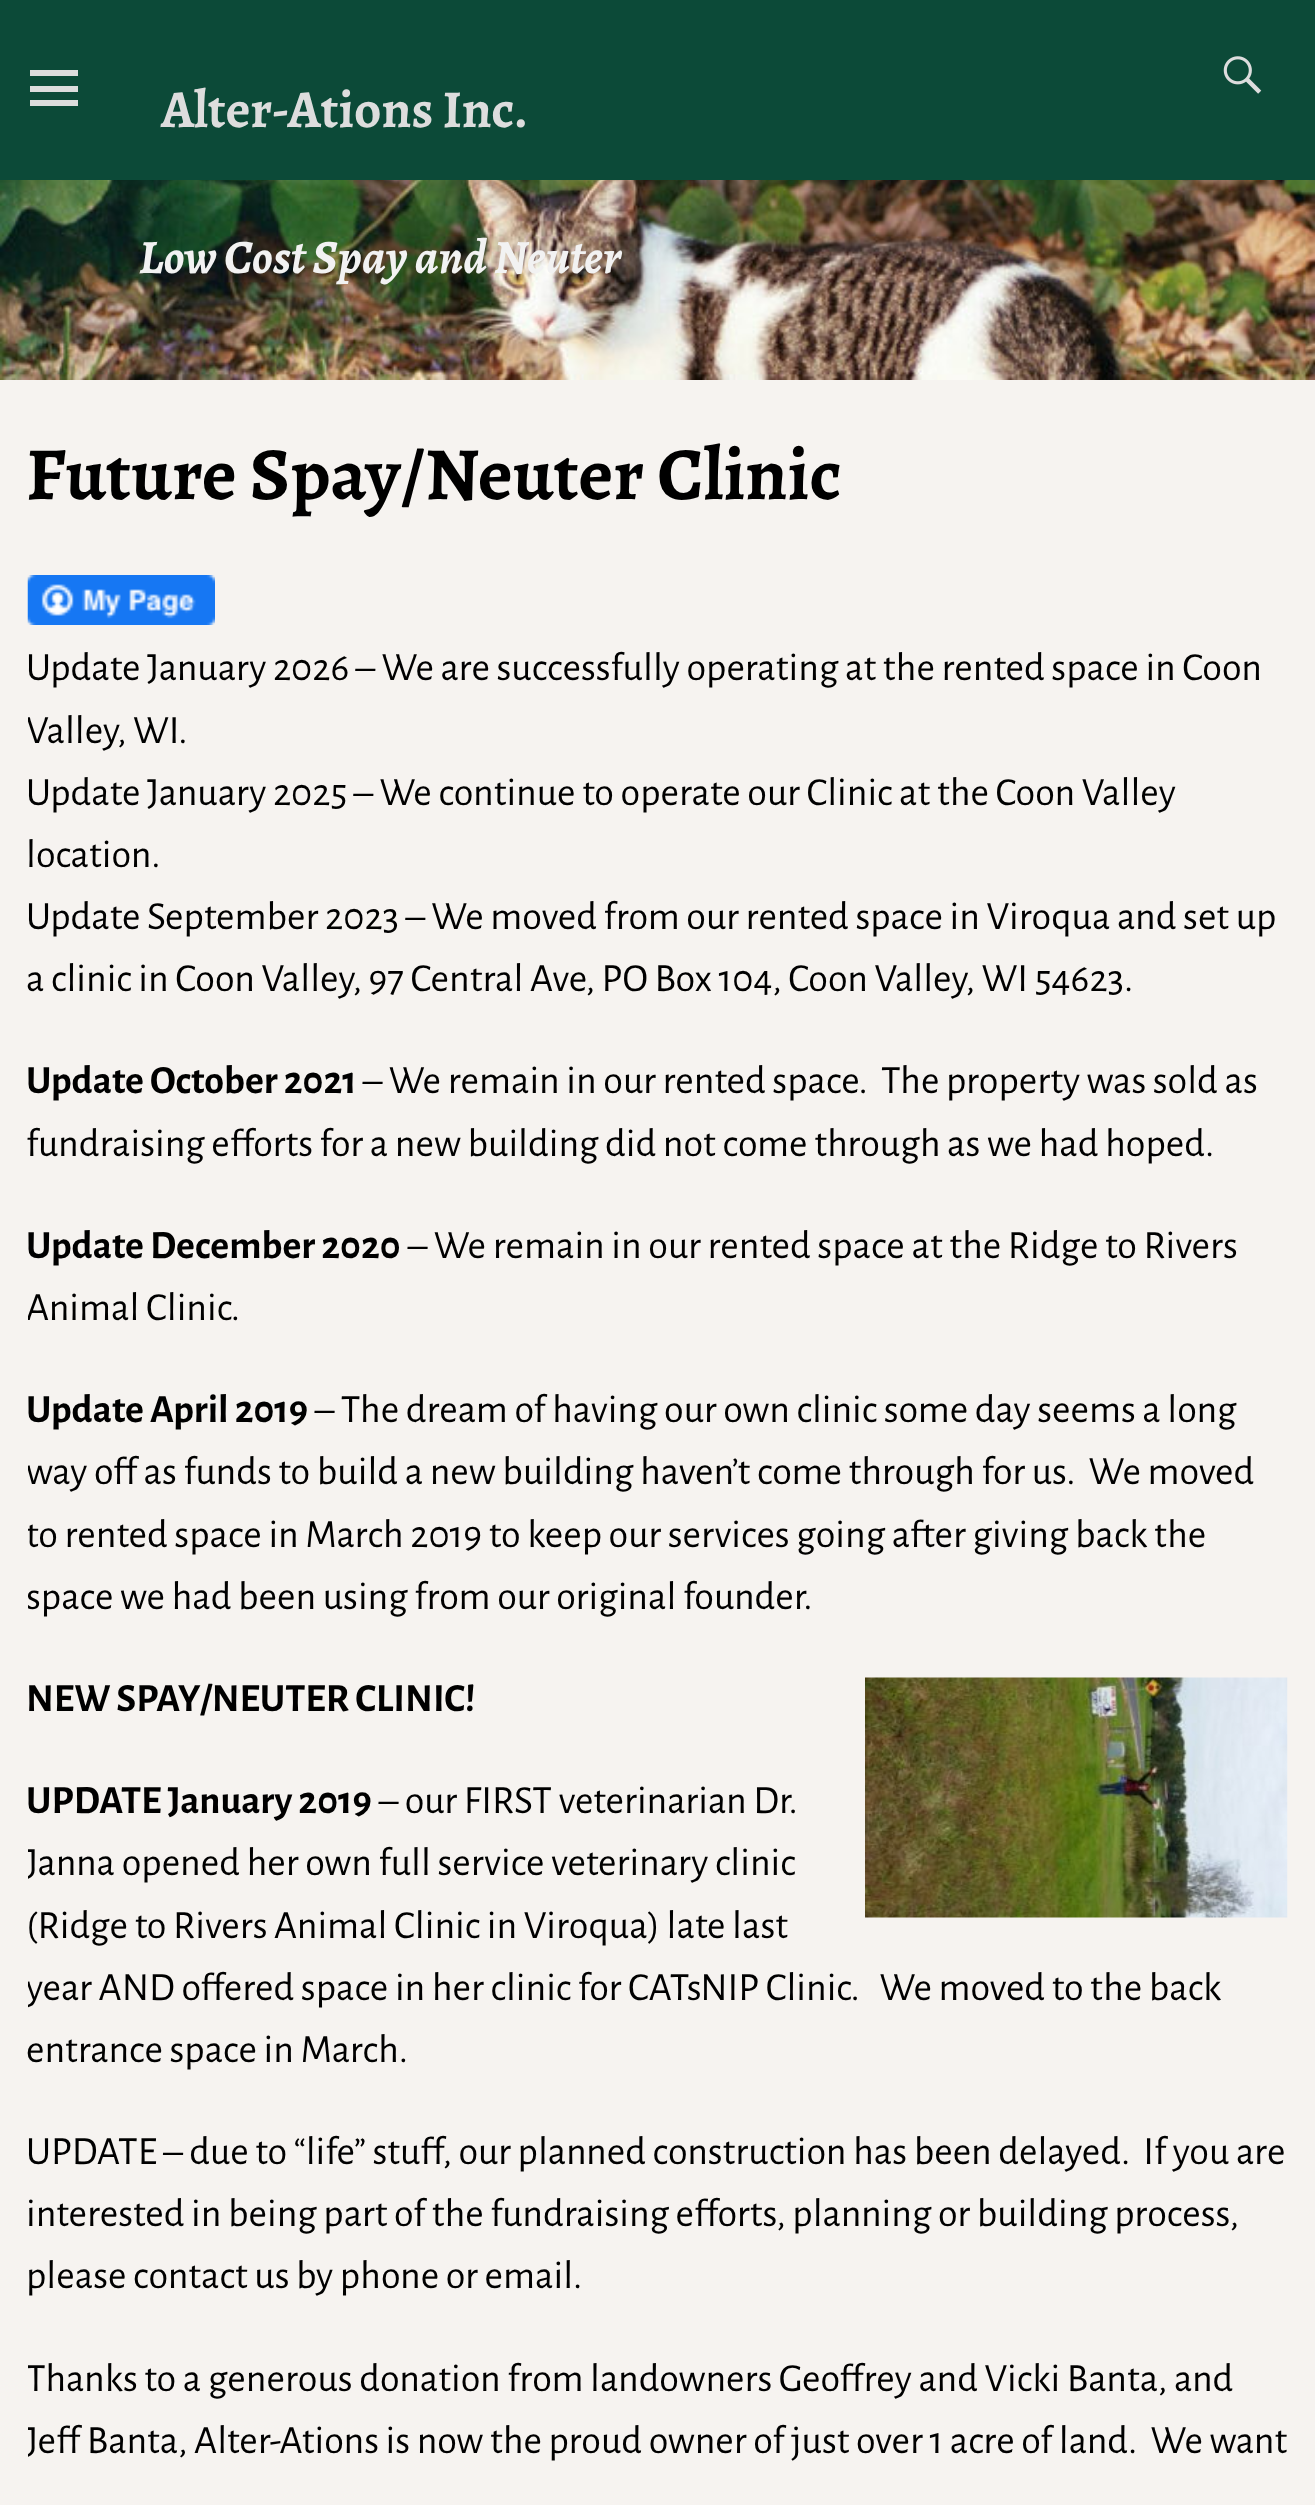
(async () => {
    const canvas = document.querySelector("canvas");
    canvas.width = 1315;
    canvas.height = 2505;
    const context = canvas.getContext("2d");
    context.miterLimit = 4;
    context.fontKerning = "normal";
    function write(s, x, y, font, color) {
        context.font = font;
        context.fillStyle = color;
        context.fillText(s, x, y);
    }
    function block(x, y, w, h, color) {
        context.fillStyle = color;
        context.fillRect(x, y, w, h);
    }
    async function photo(src, x, y, w, h) {
        const img = new Image();
        img.src = src;
        await img.decode();
        context.drawImage(img, x, y, w, h);
    }

    block(0, 0, 1315, 2505, "rgb(246, 243, 240)");
    block(0, 0, 1315, 180, "rgb(12, 74, 56)");
    context.fillStyle = "rgb(221, 221, 221)";
    context.beginPath();
    context.moveTo(30, 106);
    context.lineTo(30, 100);
    context.lineTo(78, 100);
    context.lineTo(78, 106);
    context.closePath();
    context.moveTo(30, 70);
    context.lineTo(78, 70);
    context.lineTo(78, 76);
    context.lineTo(30, 76);
    context.closePath();
    context.moveTo(30, 92);
    context.lineTo(30, 86);
    context.lineTo(78, 86);
    context.lineTo(78, 92);
    context.closePath();
    context.fill();
    write("Alter-Ations Inc.", 161, 127, "bold 53.25px Alegreya", "rgb(221, 221, 221)");
    await photo("media/1.png", 1223, 56, 39, 38);
    await photo("media/2.png", 0, 180, 1315, 200);
    write("Low Cost Spay and Neuter", 139, 273, "italic bold 48px Alegreya", "rgb(242, 242, 242)");
    write("Future Spay/Neuter Clinic", 26, 499, "bold 75px Alegreya", "rgb(0, 0, 0)");
    await photo("media/3.png", 27, 575, 188, 50);
    write("Update January 2026 – We are successfully operating at the rented space in Coon", 26, 680, "40px Alegreya Sans", "rgb(0, 0, 0)");
    context.save();
    context.beginPath();
    context.rect(28, 415, 1260, 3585);
    context.clip();
    write("Valley, WI.", 26, 743, "40px Alegreya Sans", "rgb(0, 0, 0)");
    context.restore();
    write("Update January 2025 – We continue to operate our Clinic at the Coon Valley", 26, 805, "40px Alegreya Sans", "rgb(0, 0, 0)");
    write("location.", 26, 867, "40px Alegreya Sans", "rgb(0, 0, 0)");
    write("Update September 2023 – We moved from our rented space in Viroqua and set up", 26, 929, "40px Alegreya Sans", "rgb(0, 0, 0)");
    write("a clinic in Coon Valley, 97 Central Ave, PO Box 104, Coon Valley, WI 54623.", 26, 991, "40px Alegreya Sans", "rgb(0, 0, 0)");
    write("Update October 2021", 26, 1093, "bold 40px Alegreya Sans", "rgb(0, 0, 0)");
    write("– We remain in our rented space.  The property was sold as", 363, 1093, "40px Alegreya Sans", "rgb(0, 0, 0)");
    write("fundraising efforts for a new building did not come through as we had hoped.", 26, 1156, "40px Alegreya Sans", "rgb(0, 0, 0)");
    write("Update December 2020", 26, 1258, "bold 40px Alegreya Sans", "rgb(0, 0, 0)");
    write("– We remain in our rented space at the Ridge to Rivers", 408, 1258, "40px Alegreya Sans", "rgb(0, 0, 0)");
    context.save();
    context.beginPath();
    context.rect(28, 415, 1260, 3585);
    context.clip();
    write("Animal Clinic.", 26, 1320, "40px Alegreya Sans", "rgb(0, 0, 0)");
    context.restore();
    write("Update April 2019", 26, 1422, "bold 40px Alegreya Sans", "rgb(0, 0, 0)");
    write("– The dream of having our own clinic some day seems a long", 315, 1422, "40px Alegreya Sans", "rgb(0, 0, 0)");
    context.save();
    context.beginPath();
    context.rect(28, 415, 1260, 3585);
    context.clip();
    write("way off as funds to build a new building haven’t come through for us.  We moved", 26, 1484, "40px Alegreya Sans", "rgb(0, 0, 0)");
    write("to rented space in March 2019 to keep our services going after giving back the", 26, 1547, "40px Alegreya Sans", "rgb(0, 0, 0)");
    write("space we had been using from our original founder.", 26, 1609, "40px Alegreya Sans", "rgb(0, 0, 0)");
    context.restore();
    write("NEW SPAY/NEUTER CLINIC!", 26, 1711, "bold 40px Alegreya Sans", "rgb(0, 0, 0)");
    await photo("media/4.png", 865, 1677, 423, 241);
    write("UPDATE January 2019", 26, 1813, "bold 40px Alegreya Sans", "rgb(0, 0, 0)");
    write("– our FIRST veterinarian Dr.", 379, 1813, "40px Alegreya Sans", "rgb(0, 0, 0)");
    context.save();
    context.beginPath();
    context.rect(28, 415, 1260, 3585);
    context.clip();
    write("Janna opened her own full service veterinary clinic", 26, 1875, "40px Alegreya Sans", "rgb(0, 0, 0)");
    context.restore();
    write("(Ridge to Rivers Animal Clinic in Viroqua) late last", 26, 1938, "40px Alegreya Sans", "rgb(0, 0, 0)");
    context.save();
    context.beginPath();
    context.rect(28, 415, 1260, 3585);
    context.clip();
    write("year AND offered space in her clinic for CATsNIP Clinic.   We moved to the back", 26, 2000, "40px Alegreya Sans", "rgb(0, 0, 0)");
    context.restore();
    write("entrance space in March.", 26, 2062, "40px Alegreya Sans", "rgb(0, 0, 0)");
    write("UPDATE – due to “life” stuff, our planned construction has been delayed.  If you are", 26, 2164, "40px Alegreya Sans", "rgb(0, 0, 0)");
    write("interested in being part of the fundraising efforts, planning or building process,", 26, 2226, "40px Alegreya Sans", "rgb(0, 0, 0)");
    write("please contact us by phone or email.", 26, 2288, "40px Alegreya Sans", "rgb(0, 0, 0)");
    context.save();
    context.beginPath();
    context.rect(28, 415, 1260, 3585);
    context.clip();
    write("Thanks to a generous donation from landowners Geoffrey and Vicki Banta, and", 26, 2391, "40px Alegreya Sans", "rgb(0, 0, 0)");
    write("Jeff Banta, Alter-Ations is now the proud owner of just over 1 acre of land.  We want", 26, 2453, "40px Alegreya Sans", "rgb(0, 0, 0)");
    context.restore();
})();
